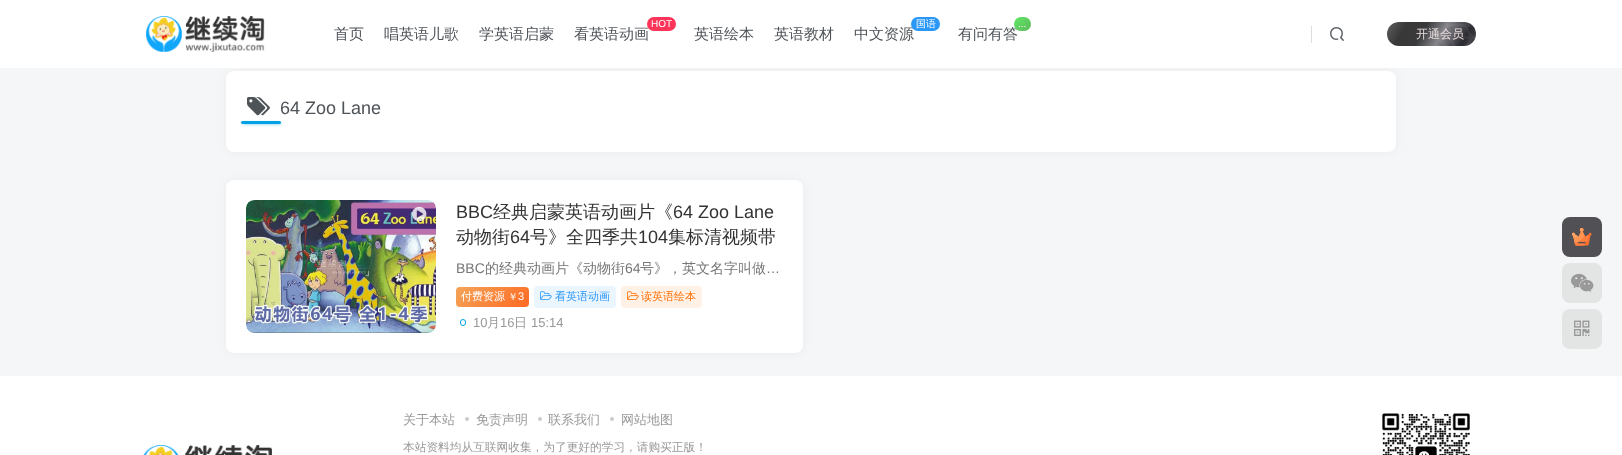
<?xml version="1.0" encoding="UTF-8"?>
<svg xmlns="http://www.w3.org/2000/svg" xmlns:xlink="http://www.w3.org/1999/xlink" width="1622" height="455">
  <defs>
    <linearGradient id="g1" gradientUnits="userSpaceOnUse" x1="1470" y1="56" x2="1393" y2="12"><stop offset="0" stop-color="#4c4d51" /><stop offset="0.15" stop-color="#2a2a31" /><stop offset="0.4" stop-color="#85858a" /><stop offset="0.6" stop-color="#393a3c" /><stop offset="0.8" stop-color="#393838" /><stop offset="1" stop-color="#5e5f62" /></linearGradient>
    <linearGradient id="g2" gradientUnits="userSpaceOnUse" x1="469" y1="274" x2="516" y2="320"><stop offset="0.1" stop-color="#f59f54" /><stop offset="1" stop-color="#ff6922" /></linearGradient>
    <linearGradient id="g3" gradientUnits="userSpaceOnUse" x1="1015" y1="16" x2="1030" y2="32"><stop offset="0.1" stop-color="#60e464" /><stop offset="1" stop-color="#5cb85b" /></linearGradient>
  </defs>
  <rect width="100%" height="100%" fill="#f5f6f7" />
  <rect x="226" y="71" width="1170" height="81" rx="8" fill="#747474" fill-opacity="0.08" filter="blur(5px)" />
  <rect width="1622" height="68" fill="#ffffff" />
  <image x="146" y="16" width="119" height="36" xlink:href="image1.png" />
  <rect x="1311" y="26" width="1" height="17" fill="#dcddde" />
  <image x="1330" y="27" width="14" height="14" xlink:href="image2.png" />
  <rect x="1387" y="22" width="89" height="24" rx="12" fill="url(#g1)" />
  <rect x="1399" y="25" width="1" height="1" fill="#4d4745" />
  <rect x="226" y="71" width="1170" height="81" rx="8" fill="#ffffff" />
  <image x="247" y="97" width="23" height="19" xlink:href="image4.png" />
  <rect x="243" y="123" width="38" height="1" rx="0.5" fill="#00a2e3" filter="blur(1.5px)" />
  <rect x="241" y="121" width="40" height="3" rx="1.5" fill="#00a2e3" />
  <rect x="226" y="180" width="577" height="173" rx="8" fill="#747474" fill-opacity="0.08" filter="blur(5px)" />
  <rect x="226" y="180" width="577" height="173" rx="8" fill="#ffffff" />
  <image x="246" y="200" width="190" height="133" xlink:href="image5.png" />
  <image x="412" y="206" width="15" height="16" xlink:href="image6.png" />
  <rect x="456" y="287" width="73" height="20" rx="4" fill="url(#g2)" />
  <rect x="534" y="286" width="82" height="22" rx="4" fill="#eaf5fe" />
  <image x="540" y="291" width="12" height="9" xlink:href="image7.png" />
  <rect x="621" y="286" width="81" height="22" rx="4" fill="#fff1e6" />
  <image x="627" y="291" width="12" height="9" xlink:href="image8.png" />
  <rect x="460.5" y="319.5" width="5" height="6" rx="2.5" fill="none" stroke="#00a2e3" />
  <rect x="1562" y="217" width="40" height="40" rx="8" fill="#505055" />
  <image x="1572" y="228" width="20" height="18" xlink:href="image9.png" />
  <rect x="1562" y="263" width="40" height="40" rx="8" fill="#e3e4e4" />
  <image x="1571" y="273" width="23" height="19" xlink:href="image10.png" />
  <rect x="1562" y="309" width="40" height="40" rx="8" fill="#e3e4e4" />
  <image x="1574" y="320" width="16" height="16" xlink:href="image11.png" />
  <rect y="376" width="1622" height="79" fill="#ffffff" />
  <image x="143" y="445" width="129" height="10" xlink:href="image12.png" />
  <circle cx="467" cy="419" r="2" fill="#cacbcd" />
  <circle cx="540" cy="419" r="2" fill="#cacbcd" />
  <circle cx="612" cy="419" r="2" fill="#cacbcd" />
  <image x="1382" y="413" width="88" height="42" xlink:href="image13.png" />
  <text x="334" y="39" style="font-family: WenQuanYi Zen Hei; font-size: 15px; font-weight: 500; fill: #4e5358">首页</text>
  <text x="384" y="39" style="font-family: WenQuanYi Zen Hei; font-size: 15px; font-weight: 500; fill: #4e5358">唱英语儿歌</text>
  <text x="479" y="39" style="font-family: WenQuanYi Zen Hei; font-size: 15px; font-weight: 500; fill: #4e5358">学英语启蒙</text>
  <text x="574" y="39" style="font-family: WenQuanYi Zen Hei; font-size: 15px; font-weight: 500; fill: #4e5358">看英语动画</text>
  <rect x="647" y="17" width="29" height="14" rx="7" fill="#fe3459" />
  <text x="651" y="27" style="font-family: Liberation Sans; font-size: 10px; fill: #ffffff">HOT</text>
  <text x="694" y="39" style="font-family: WenQuanYi Zen Hei; font-size: 15px; font-weight: 500; fill: #4e5358">英语绘本</text>
  <text x="774" y="39" style="font-family: WenQuanYi Zen Hei; font-size: 15px; font-weight: 500; fill: #4e5358">英语教材</text>
  <text x="854" y="39" style="font-family: WenQuanYi Zen Hei; font-size: 15px; font-weight: 500; fill: #4e5358">中文资源</text>
  <rect x="911" y="17" width="29" height="14" rx="7" fill="#2997f7" />
  <text x="916" y="27" style="font-family: WenQuanYi Zen Hei; font-size: 10px; font-weight: 500; fill: #ffffff">国语</text>
  <text x="958" y="39" style="font-family: WenQuanYi Zen Hei; font-size: 15px; font-weight: 500; fill: #4e5358">有问有答</text>
  <rect x="1014" y="17" width="17" height="14" rx="7" fill="url(#g3)" />
  <text x="1018" y="27" style="font-family: Liberation Sans; font-size: 10px; fill: #ffffff">...</text>
  <text x="1416" y="38" style="font-family: WenQuanYi Zen Hei; font-size: 12px; font-weight: 500; fill: #ece0e0">开通会员</text>
  <image x="1437" y="24" width="39" height="22" xlink:href="image3.png" />
  <text x="280" y="114" style="font-family: Liberation Sans; font-size: 18px; fill: #4e5358">64 Zoo Lane</text>
  <text x="456" y="218" style="font-family: Liberation Sans; font-size: 18px; fill: #333333">BBC</text>
  <text x="493" y="218" style="font-family: WenQuanYi Zen Hei; font-size: 18px; font-weight: 500; fill: #333333">经典启蒙英语动画片《</text>
  <text x="673" y="218" style="font-family: Liberation Sans; font-size: 18px; fill: #333333">64 Zoo Lane</text>
  <text x="456" y="243" style="font-family: WenQuanYi Zen Hei; font-size: 18px; font-weight: 500; fill: #333333">动物街</text>
  <text x="510" y="243" style="font-family: Liberation Sans; font-size: 18px; fill: #333333">64</text>
  <text x="530" y="243" style="font-family: WenQuanYi Zen Hei; font-size: 18px; font-weight: 500; fill: #333333">号》全四季共</text>
  <text x="638" y="243" style="font-family: Liberation Sans; font-size: 18px; fill: #333333">104</text>
  <text x="668" y="243" style="font-family: WenQuanYi Zen Hei; font-size: 18px; font-weight: 500; fill: #333333">集标清视频带</text>
  <text x="456" y="273" style="font-family: Liberation Sans; font-size: 14px; fill: #777777">BBC</text>
  <text x="485" y="273" style="font-family: WenQuanYi Zen Hei; font-size: 14px; font-weight: 500; fill: #777777">的经典动画片《动物街</text>
  <text x="625" y="273" style="font-family: Liberation Sans; font-size: 14px; fill: #777777">64</text>
  <text x="640" y="273" style="font-family: WenQuanYi Zen Hei; font-size: 14px; font-weight: 500; fill: #777777">号》，英文名字叫做</text>
  <text x="766" y="273" style="font-family: Liberation Sans; font-size: 14px; fill: #777777">…</text>
  <text x="461" y="300" style="font-family: WenQuanYi Zen Hei; font-size: 11px; font-weight: 500; fill: #ffffff">付费资源</text>
  <text x="508" y="300" style="font-family: WenQuanYi Zen Hei; font-size: 10px; font-weight: 500; fill: #ffffff">￥</text>
  <text x="518" y="300" style="font-family: Liberation Sans; font-size: 11px; fill: #ffffff">3</text>
  <text x="555" y="300" style="font-family: WenQuanYi Zen Hei; font-size: 11px; font-weight: 500; fill: #2997f7">看英语动画</text>
  <text x="641" y="300" style="font-family: WenQuanYi Zen Hei; font-size: 11px; font-weight: 500; fill: #ff6f06">读英语绘本</text>
  <text x="473" y="327" style="font-family: Liberation Sans; font-size: 13px; fill: #999999">10</text>
  <text x="487" y="327" style="font-family: WenQuanYi Zen Hei; font-size: 13px; font-weight: 500; fill: #999999">月</text>
  <text x="500" y="327" style="font-family: Liberation Sans; font-size: 13px; fill: #999999">16</text>
  <text x="514" y="327" style="font-family: WenQuanYi Zen Hei; font-size: 13px; font-weight: 500; fill: #999999">日</text>
  <text x="531" y="327" style="font-family: Liberation Sans; font-size: 13px; fill: #999999">15:14</text>
  <text x="403" y="424" style="font-family: WenQuanYi Zen Hei; font-size: 13px; font-weight: 500; fill: #999999">关于本站</text>
  <text x="476" y="424" style="font-family: WenQuanYi Zen Hei; font-size: 13px; font-weight: 500; fill: #999999">免责声明</text>
  <text x="548" y="424" style="font-family: WenQuanYi Zen Hei; font-size: 13px; font-weight: 500; fill: #999999">联系我们</text>
  <text x="621" y="424" style="font-family: WenQuanYi Zen Hei; font-size: 13px; font-weight: 500; fill: #999999">网站地图</text>
  <text x="403" y="451" style="font-family: WenQuanYi Zen Hei; font-size: 11.7px; font-weight: 500; fill: #999999">本站资料均从互联网收集，为了更好的学习，请购买正版！</text>
</svg>
